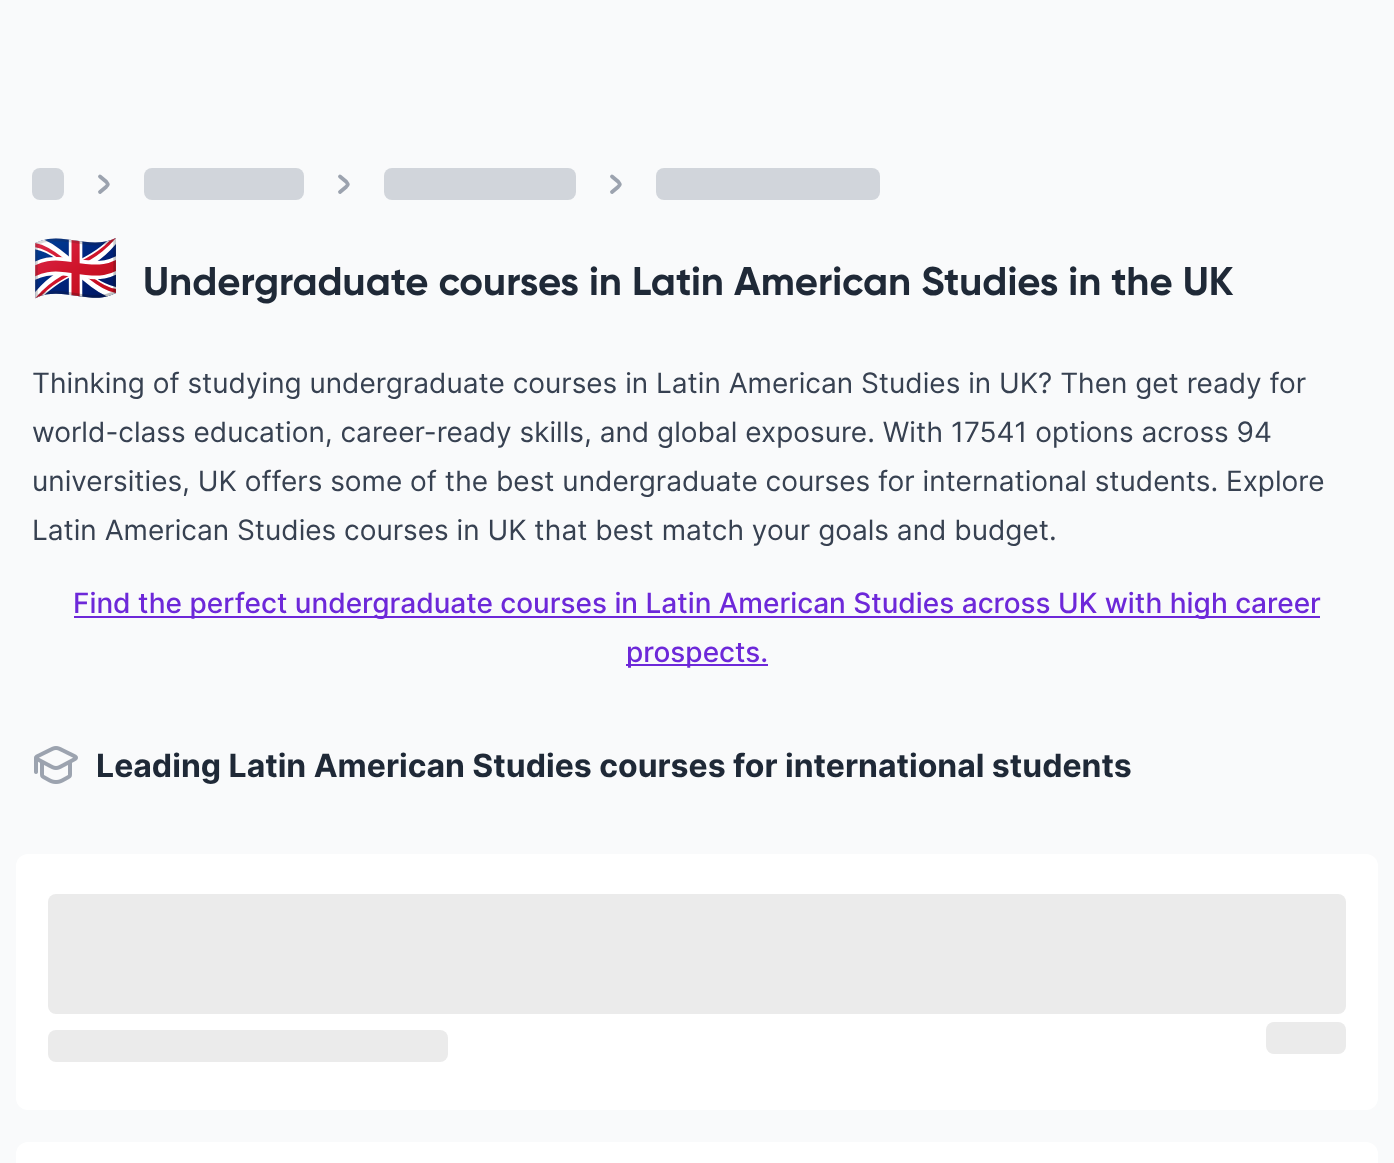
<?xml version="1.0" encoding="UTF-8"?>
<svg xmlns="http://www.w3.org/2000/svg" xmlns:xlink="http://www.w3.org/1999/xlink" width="1394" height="1163">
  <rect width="100%" height="100%" fill="#f9fafb" />
  <rect x="32" y="168" width="32" height="32" rx="8" fill="#d1d5db" />
  <path d="M 100 176.5 l 6 5 c 2.5 3 2.5 2.5 0 5.5 l -6 5" fill="none" stroke="#9ca3af" stroke-width="3.8" stroke-linecap="round" stroke-linejoin="round" />
  <rect x="144" y="168" width="160" height="32" rx="8" fill="#d1d5db" />
  <path d="M 340 176.5 l 6 5 c 2.5 3 2.5 2.5 0 5.5 l -6 5" fill="none" stroke="#9ca3af" stroke-width="3.8" stroke-linecap="round" stroke-linejoin="round" />
  <rect x="384" y="168" width="192" height="32" rx="8" fill="#d1d5db" />
  <path d="M 612 176.5 l 6 5 c 2.5 3 2.5 2.5 0 5.5 l -6 5" fill="none" stroke="#9ca3af" stroke-width="3.8" stroke-linecap="round" stroke-linejoin="round" />
  <rect x="656" y="168" width="224" height="32" rx="8" fill="#d1d5db" />
  <rect x="74" y="616" width="1246" height="2" fill="#6d28d9" />
  <rect x="626" y="664" width="142" height="2" fill="#6d28d9" />
  <image x="34" y="746" width="44" height="38" xlink:href="image1.png" />
  <rect x="16" y="854" width="1362" height="256" rx="12" fill="#ffffff" />
  <rect x="48" y="894" width="1298" height="120" rx="8" fill="#ebebeb" />
  <rect x="48" y="1030" width="400" height="32" rx="8" fill="#ebebeb" />
  <rect x="1266" y="1022" width="80" height="32" rx="8" fill="#ebebeb" />
  <rect x="16" y="1142" width="1362" height="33" rx="12" fill="#ffffff" />
  <text x="32" y="292" style="font-family: Noto Color Emoji; font-size: 70px; font-weight: bold; fill: #1f2937">🇬🇧</text>
  <text x="143" y="295" style="font-family: Gilroy; font-size: 40px; font-weight: bold; fill: #1f2937">Undergraduate courses in Latin American Studies in the UK</text>
  <text x="32" y="393" style="font-family: Inter; font-size: 28px; fill: #374151">Thinking of studying undergraduate courses in Latin American Studies in UK? Then get ready for</text>
  <text x="32" y="442" style="font-family: Inter; font-size: 28px; fill: #374151">world-class education, career-ready skills, and global exposure. With 17541 options across 94</text>
  <text x="32" y="491" style="font-family: Inter; font-size: 28px; fill: #374151">universities, UK offers some of the best undergraduate courses for international students. Explore</text>
  <text x="32" y="540" style="font-family: Inter; font-size: 28px; fill: #374151">Latin American Studies courses in UK that best match your goals and budget.</text>
  <text x="73" y="613" style="font-family: Inter; font-size: 28px; font-weight: 500; fill: #6d28d9">Find the perfect undergraduate courses in Latin American Studies across UK with high career</text>
  <text x="626" y="662" style="font-family: Inter; font-size: 28px; font-weight: 500; fill: #6d28d9">prospects.</text>
  <text x="96" y="777" style="font-family: Inter; font-size: 32px; font-weight: bold; fill: #1f2937">Leading Latin American Studies courses for international students</text>
</svg>
